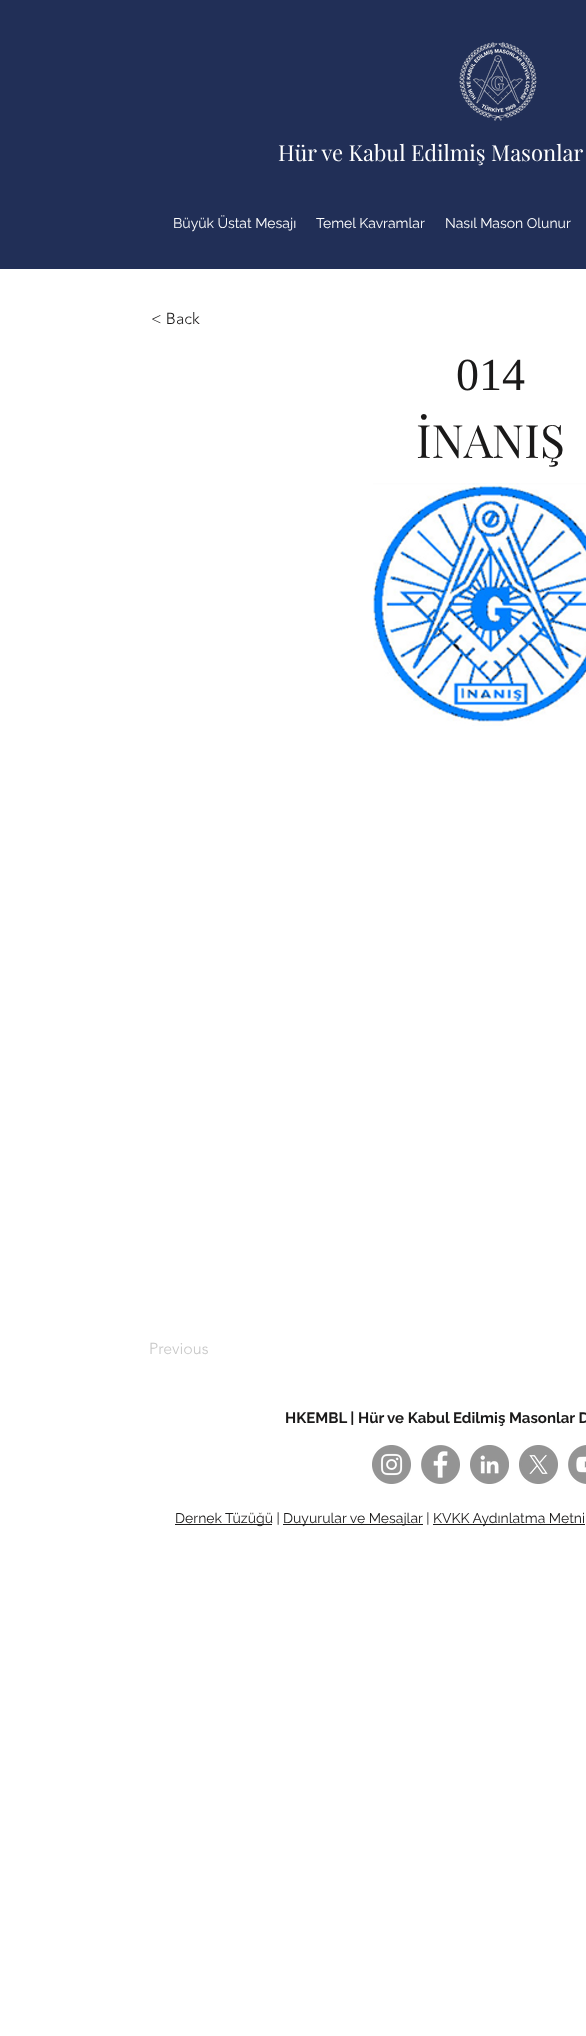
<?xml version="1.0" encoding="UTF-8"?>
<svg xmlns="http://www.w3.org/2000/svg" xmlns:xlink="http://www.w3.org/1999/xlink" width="586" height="2036">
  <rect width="100%" height="100%" fill="#ffffff" />
  <rect width="586" height="269" fill="#212f57" />
  <image x="459" y="42" width="78" height="79" xlink:href="image1.png" />
  <image x="373" y="483" width="213" height="243" xlink:href="image2.png" />
  <image x="372" y="1445" width="39" height="39" xlink:href="image3.png" />
  <image x="421" y="1445" width="39" height="39" xlink:href="image4.png" />
  <image x="470" y="1445" width="39" height="39" xlink:href="image5.png" />
  <image x="519" y="1445" width="39" height="39" xlink:href="image6.png" />
  <image x="568" y="1445" width="18" height="39" xlink:href="image7.png" />
  <rect x="175" y="1524" width="97" height="1" fill="#1a1919" />
  <rect x="283" y="1524" width="140" height="1" fill="#1a1919" />
  <rect x="433" y="1524" width="152" height="1" fill="#1a1919" />
  <text x="278" y="161" style="font-family: Playfair Display; font-size: 22px; fill: #ffffff">Hür ve Kabul Edilmiş Masonlar</text>
  <text x="173" y="228" style="font-family: Raleway; font-size: 14px; fill: #ffffff">Büyük Üstat Mesajı</text>
  <text x="316" y="228" style="font-family: Raleway; font-size: 14px; fill: #ffffff">Temel Kavramlar</text>
  <text x="445" y="228" style="font-family: Raleway; font-size: 14px; fill: #ffffff">Nasıl Mason Olunur</text>
  <text x="151" y="324" style="font-family: 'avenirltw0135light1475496'; font-size: 16px; font-weight: 300; fill: #1a1919">&lt; Back</text>
  <text x="456" y="390" style="font-family: Liberation Serif; font-size: 46px; fill: #1a1919">014</text>
  <text x="416" y="458" style="font-family: Playfair Display; font-size: 46px; fill: #1a1919">İNANIŞ</text>
  <text x="149" y="1354" style="font-family: 'avenirltw0135light1475496'; font-size: 16px; font-weight: 300; fill: #c7c7c7">Previous</text>
  <text x="285" y="1423" style="font-family: Raleway; font-size: 15px; font-weight: bold; fill: #1a1919">HKEMBL | Hür ve Kabul Edilmiş Masonlar D</text>
  <text x="175" y="1523" style="font-family: Raleway; font-size: 14px; fill: #1a1919">Dernek Tüzüğü |</text>
  <text x="283" y="1523" style="font-family: Raleway; font-size: 14px; fill: #1a1919">Duyurular ve Mesajlar |</text>
  <text x="433" y="1523" style="font-family: Raleway; font-size: 14px; fill: #1a1919">KVKK Aydınlatma Metni</text>
</svg>
